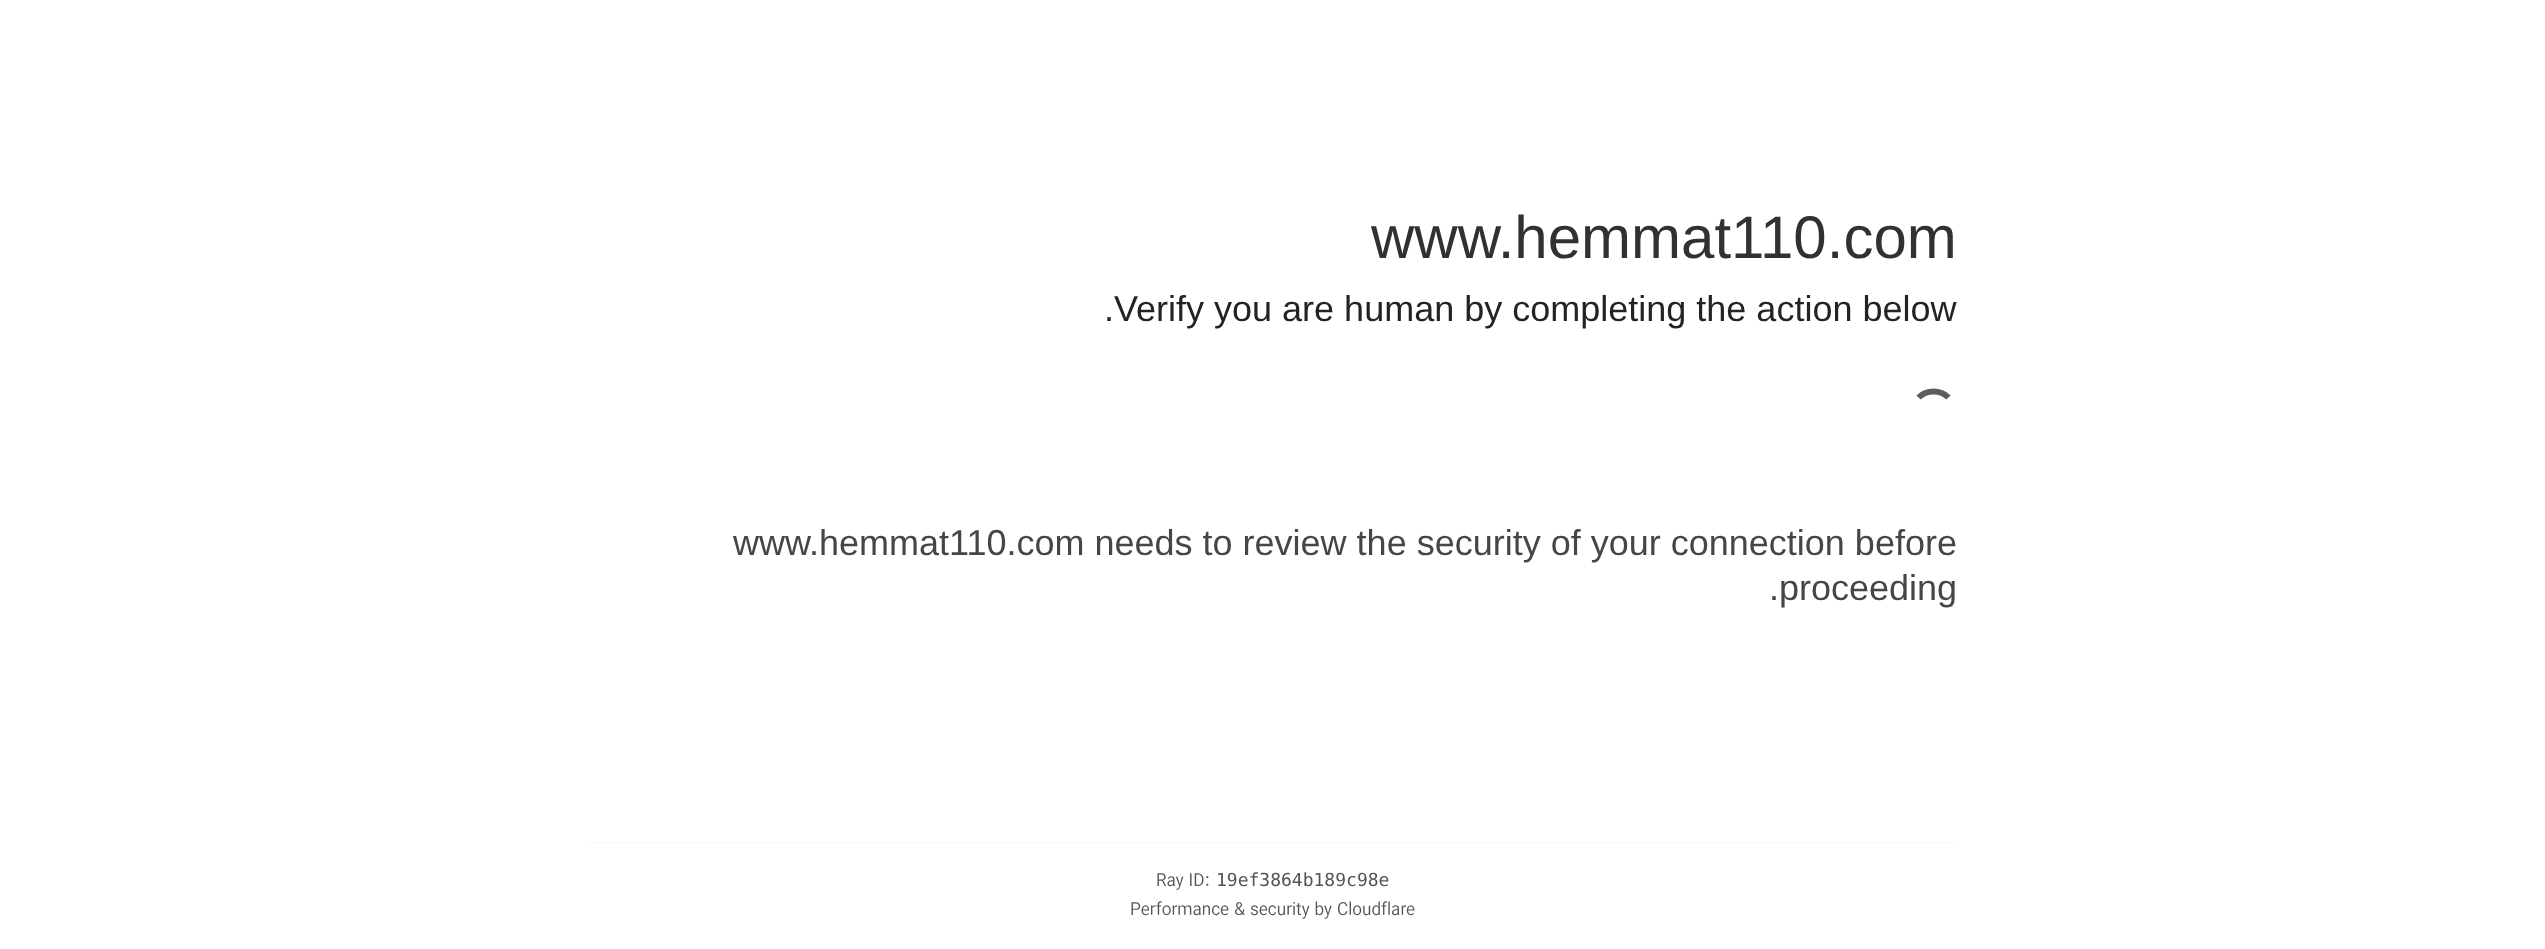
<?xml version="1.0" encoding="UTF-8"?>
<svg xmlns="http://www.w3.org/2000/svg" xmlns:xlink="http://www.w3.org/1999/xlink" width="2545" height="949">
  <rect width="100%" height="100%" fill="#ffffff" />
  <path d="M 1918.5 397.5 c 8 -8 22 -8 30 0" fill="none" stroke="#5e5e5e" stroke-width="6" />
  <rect x="590" y="842" width="1368" height="2" fill="#fbfbfb" />
  <text x="1371" y="258" style="font-family: Liberation Sans; font-size: 60px; fill: #313131">www.hemmat110.com</text>
  <text x="1104" y="321" style="font-family: Liberation Sans; font-size: 36px; fill: #232323">.Verify you are human by completing the action below</text>
  <text x="733" y="555" style="font-family: Liberation Sans; font-size: 36px; fill: #464646">www.hemmat110.com needs to review the security of your connection before</text>
  <text x="1769" y="600" style="font-family: Liberation Sans; font-size: 36px; fill: #464646">.proceeding</text>
  <text x="1156" y="886" style="font-family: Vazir; font-size: 18px; font-weight: 300; fill: #545454">Ray ID:</text>
  <text x="1216" y="886" style="font-family: DejaVu Sans Mono; font-size: 18px; fill: #545454">19ef3864b189c98e</text>
  <text x="1130" y="915" style="font-family: Vazir; font-size: 18px; font-weight: 300; fill: #545454">Performance &amp; security by Cloudflare</text>
</svg>
